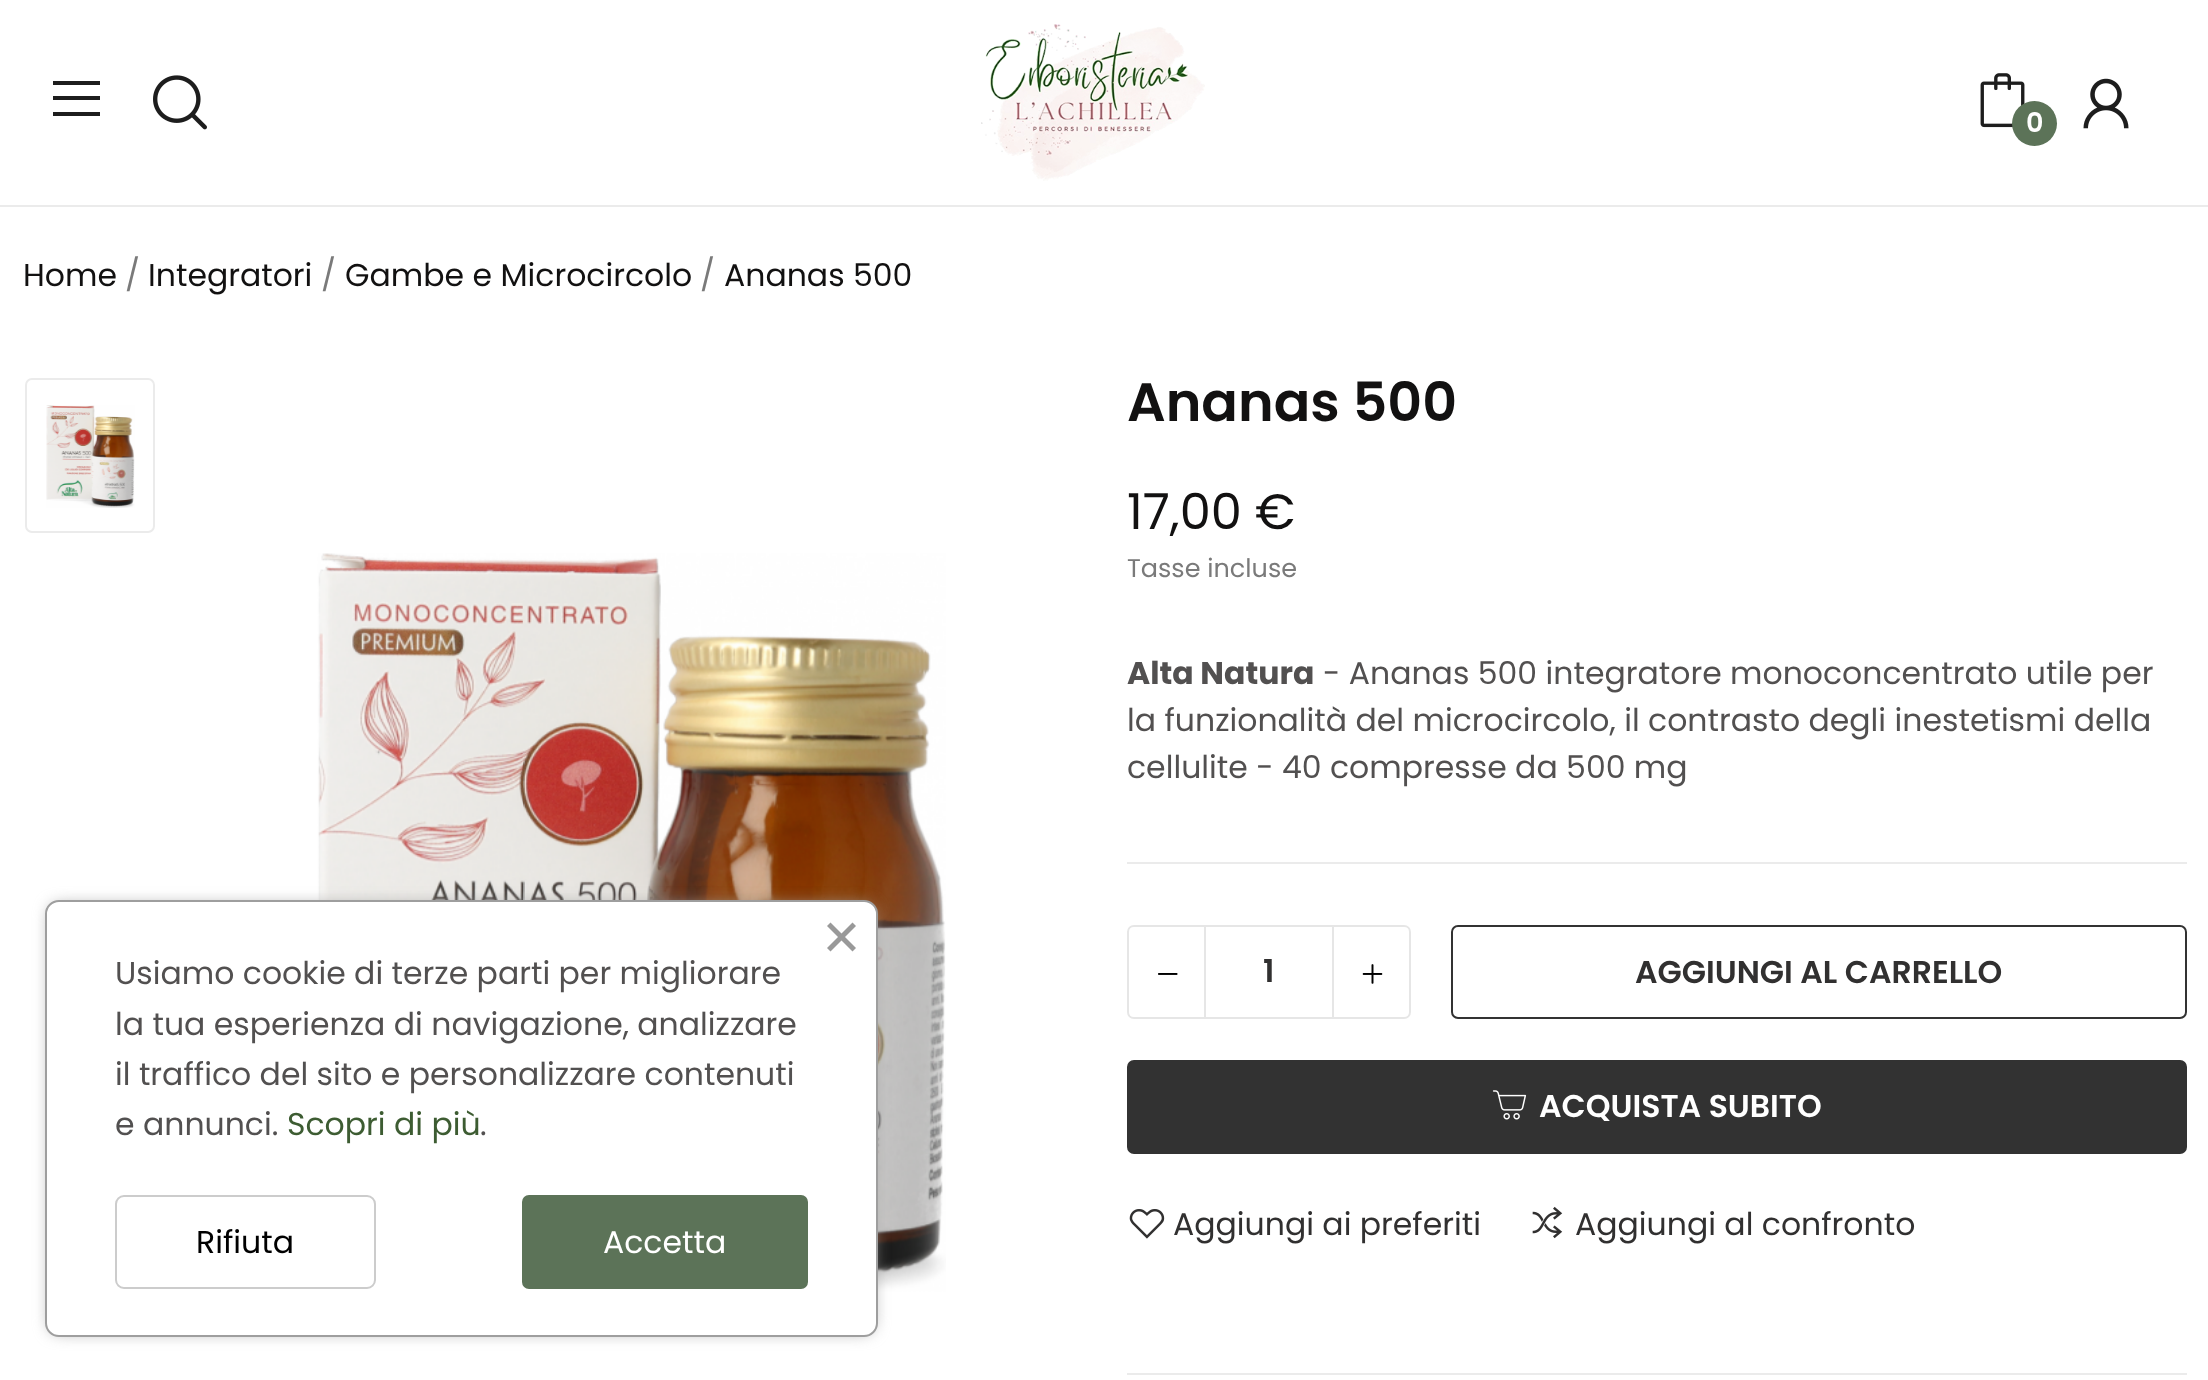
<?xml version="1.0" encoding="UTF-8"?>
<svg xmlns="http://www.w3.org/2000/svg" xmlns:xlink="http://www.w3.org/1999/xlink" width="2208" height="1380">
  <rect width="100%" height="100%" fill="#ffffff" />
  <rect y="205" width="2208" height="2" fill="#ebebeb" />
  <path d="M 53 81 v 4 h 47 v -4 z m 0 15 v 4 h 47 v -4 z m 0 16 v 4 h 47 v -4 z" fill="#1d1d1d" />
  <image x="153" y="75" width="54" height="55" xlink:href="image1.png" />
  <image x="981" y="24" width="224" height="157" xlink:href="image2.png" />
  <image x="1980" y="73" width="45" height="55" xlink:href="image3.png" />
  <circle cx="2034.5" cy="123.5" r="22.5" fill="#5c7358" />
  <image x="2083" y="78" width="46" height="51" xlink:href="image4.png" />
  <rect x="26" y="379" width="128" height="153" rx="6" fill="none" stroke="#ebebeb" stroke-width="2" />
  <image x="46" y="405" width="89" height="103" xlink:href="image5.png" />
  <image x="317" y="553" width="629" height="739" xlink:href="image6.png" />
  <rect x="1127" y="862" width="1060" height="2" fill="#ebebeb" />
  <path d="M 1134 926 h 71 v 92 h -71 c -3.5 0 -6 -2.5 -6 -6 v -80 c 0 -3.5 2.5 -6 6 -6 z" fill="none" stroke="#e6e6e6" stroke-width="2" />
  <image x="1158" y="973" width="20" height="2" xlink:href="image7.png" />
  <path d="M 1333 926 h 71 c 3.5 0 6 2.5 6 6 v 80 c 0 3.5 -2.5 6 -6 6 h -71 z" fill="none" stroke="#e6e6e6" stroke-width="2" />
  <image x="1362" y="964" width="21" height="20" xlink:href="image8.png" />
  <rect x="1206" y="925" width="126" height="2" fill="#e6e6e6" />
  <rect x="1206" y="1017" width="126" height="2" fill="#e6e6e6" />
  <rect x="1452" y="926" width="734" height="92" rx="6" fill="none" stroke="#323232" stroke-width="2" />
  <rect x="1128" y="1061" width="1058" height="92" rx="6" fill="#323232" stroke="#323232" stroke-width="2" />
  <image x="1492" y="1090" width="35" height="30" xlink:href="image9.png" />
  <image x="1129" y="1209" width="36" height="30" xlink:href="image10.png" />
  <image x="1532" y="1206" width="31" height="33" xlink:href="image11.png" />
  <rect x="1127" y="1373" width="1060" height="2" fill="#ebebeb" />
  <rect x="50" y="905" width="823" height="427" rx="9" fill="#9e9e9e" filter="blur(8px)" />
  <rect x="46" y="901" width="831" height="435" rx="13" fill="#ffffff" stroke="#9e9e9e" stroke-width="2" />
  <path d="M 827 948 l 25.5 -25.5 l 3.5 3.5 l -25.5 25.5 z" fill="#999999" />
  <path d="M 830.5 922.5 l 25.5 25.5 l -3.5 3.5 l -25.5 -25.5 z" fill="#999999" />
  <rect x="116" y="1196" width="259" height="92" rx="8" fill="none" stroke="#cccccc" stroke-width="2" />
  <rect x="523" y="1196" width="284" height="92" rx="6" fill="#5c7358" stroke="#5c7358" stroke-width="2" />
  <text x="2026" y="132" style="font-family: Poppins; font-size: 27px; font-weight: 600; fill: #ffffff">0</text>
  <text x="23" y="286" style="font-family: Poppins; font-size: 31.5px; fill: #121111">Home</text>
  <text x="125" y="286" style="font-family: Poppins; font-size: 31.5px; fill: #7a7a7a">/</text>
  <text x="148" y="286" style="font-family: Poppins; font-size: 31.5px; fill: #121111">Integratori</text>
  <text x="321" y="286" style="font-family: Poppins; font-size: 31.5px; fill: #7a7a7a">/</text>
  <text x="345" y="286" style="font-family: Poppins; font-size: 31.5px; fill: #121111">Gambe e Microcircolo</text>
  <text x="700" y="286" style="font-family: Poppins; font-size: 31.5px; fill: #7a7a7a">/</text>
  <text x="724" y="286" style="font-family: Poppins; font-size: 31.5px; fill: #121111">Ananas 500</text>
  <text x="1127" y="421" style="font-family: Poppins; font-size: 54px; font-weight: 600; fill: #121111">Ananas 500</text>
  <text x="1127" y="529" style="font-family: Poppins; font-size: 49.5px; fill: #121111">17,00 €</text>
  <text x="1127" y="577" style="font-family: Poppins; font-size: 25.5px; fill: #7a7a7a">Tasse incluse</text>
  <text x="1127" y="684" style="font-family: Poppins; font-size: 31.5px; font-weight: bold; fill: #525050">Alta Natura</text>
  <text x="1323" y="684" style="font-family: Poppins; font-size: 31.5px; fill: #525050">- Ananas 500 integratore monoconcentrato utile per</text>
  <text x="1127" y="731" style="font-family: Poppins; font-size: 31.5px; fill: #525050">la funzionalità del microcircolo, il contrasto degli inestetismi della</text>
  <text x="1127" y="778" style="font-family: Poppins; font-size: 31.5px; fill: #525050">cellulite - 40 compresse da 500 mg</text>
  <text x="1263" y="982" style="font-family: Poppins; font-size: 31.5px; font-weight: 600; fill: #313030">1</text>
  <text x="1635" y="983" style="font-family: Poppins; font-size: 31.5px; font-weight: 600; fill: #313030">AGGIUNGI AL CARRELLO</text>
  <text x="1539" y="1117" style="font-family: Poppins; font-size: 31.5px; font-weight: 600; fill: #ffffff">ACQUISTA SUBITO</text>
  <text x="1173" y="1235" style="font-family: Poppins; font-size: 31.5px; fill: #313030">Aggiungi ai preferiti</text>
  <text x="1575" y="1235" style="font-family: Poppins; font-size: 31.5px; fill: #313030">Aggiungi al confronto</text>
  <text x="115" y="984" style="font-family: Poppins; font-size: 31.5px; fill: #525050">Usiamo cookie di terze parti per migliorare</text>
  <text x="115" y="1035" style="font-family: Poppins; font-size: 31.5px; fill: #525050">la tua esperienza di navigazione, analizzare</text>
  <text x="115" y="1085" style="font-family: Poppins; font-size: 31.5px; fill: #525050">il traffico del sito e personalizzare contenuti</text>
  <text x="115" y="1135" style="font-family: Poppins; font-size: 31.5px; fill: #525050">e annunci.</text>
  <text x="287" y="1135" style="font-family: Poppins; font-size: 31.5px; fill: #3d5c32">Scopri di più</text>
  <text x="480" y="1135" style="font-family: Poppins; font-size: 31.5px; fill: #525050">.</text>
  <text x="196" y="1253" style="font-family: Poppins; font-size: 31.5px; fill: #000000">Rifiuta</text>
  <text x="603" y="1253" style="font-family: Poppins; font-size: 31.5px; fill: #ffffff">Accetta</text>
</svg>
